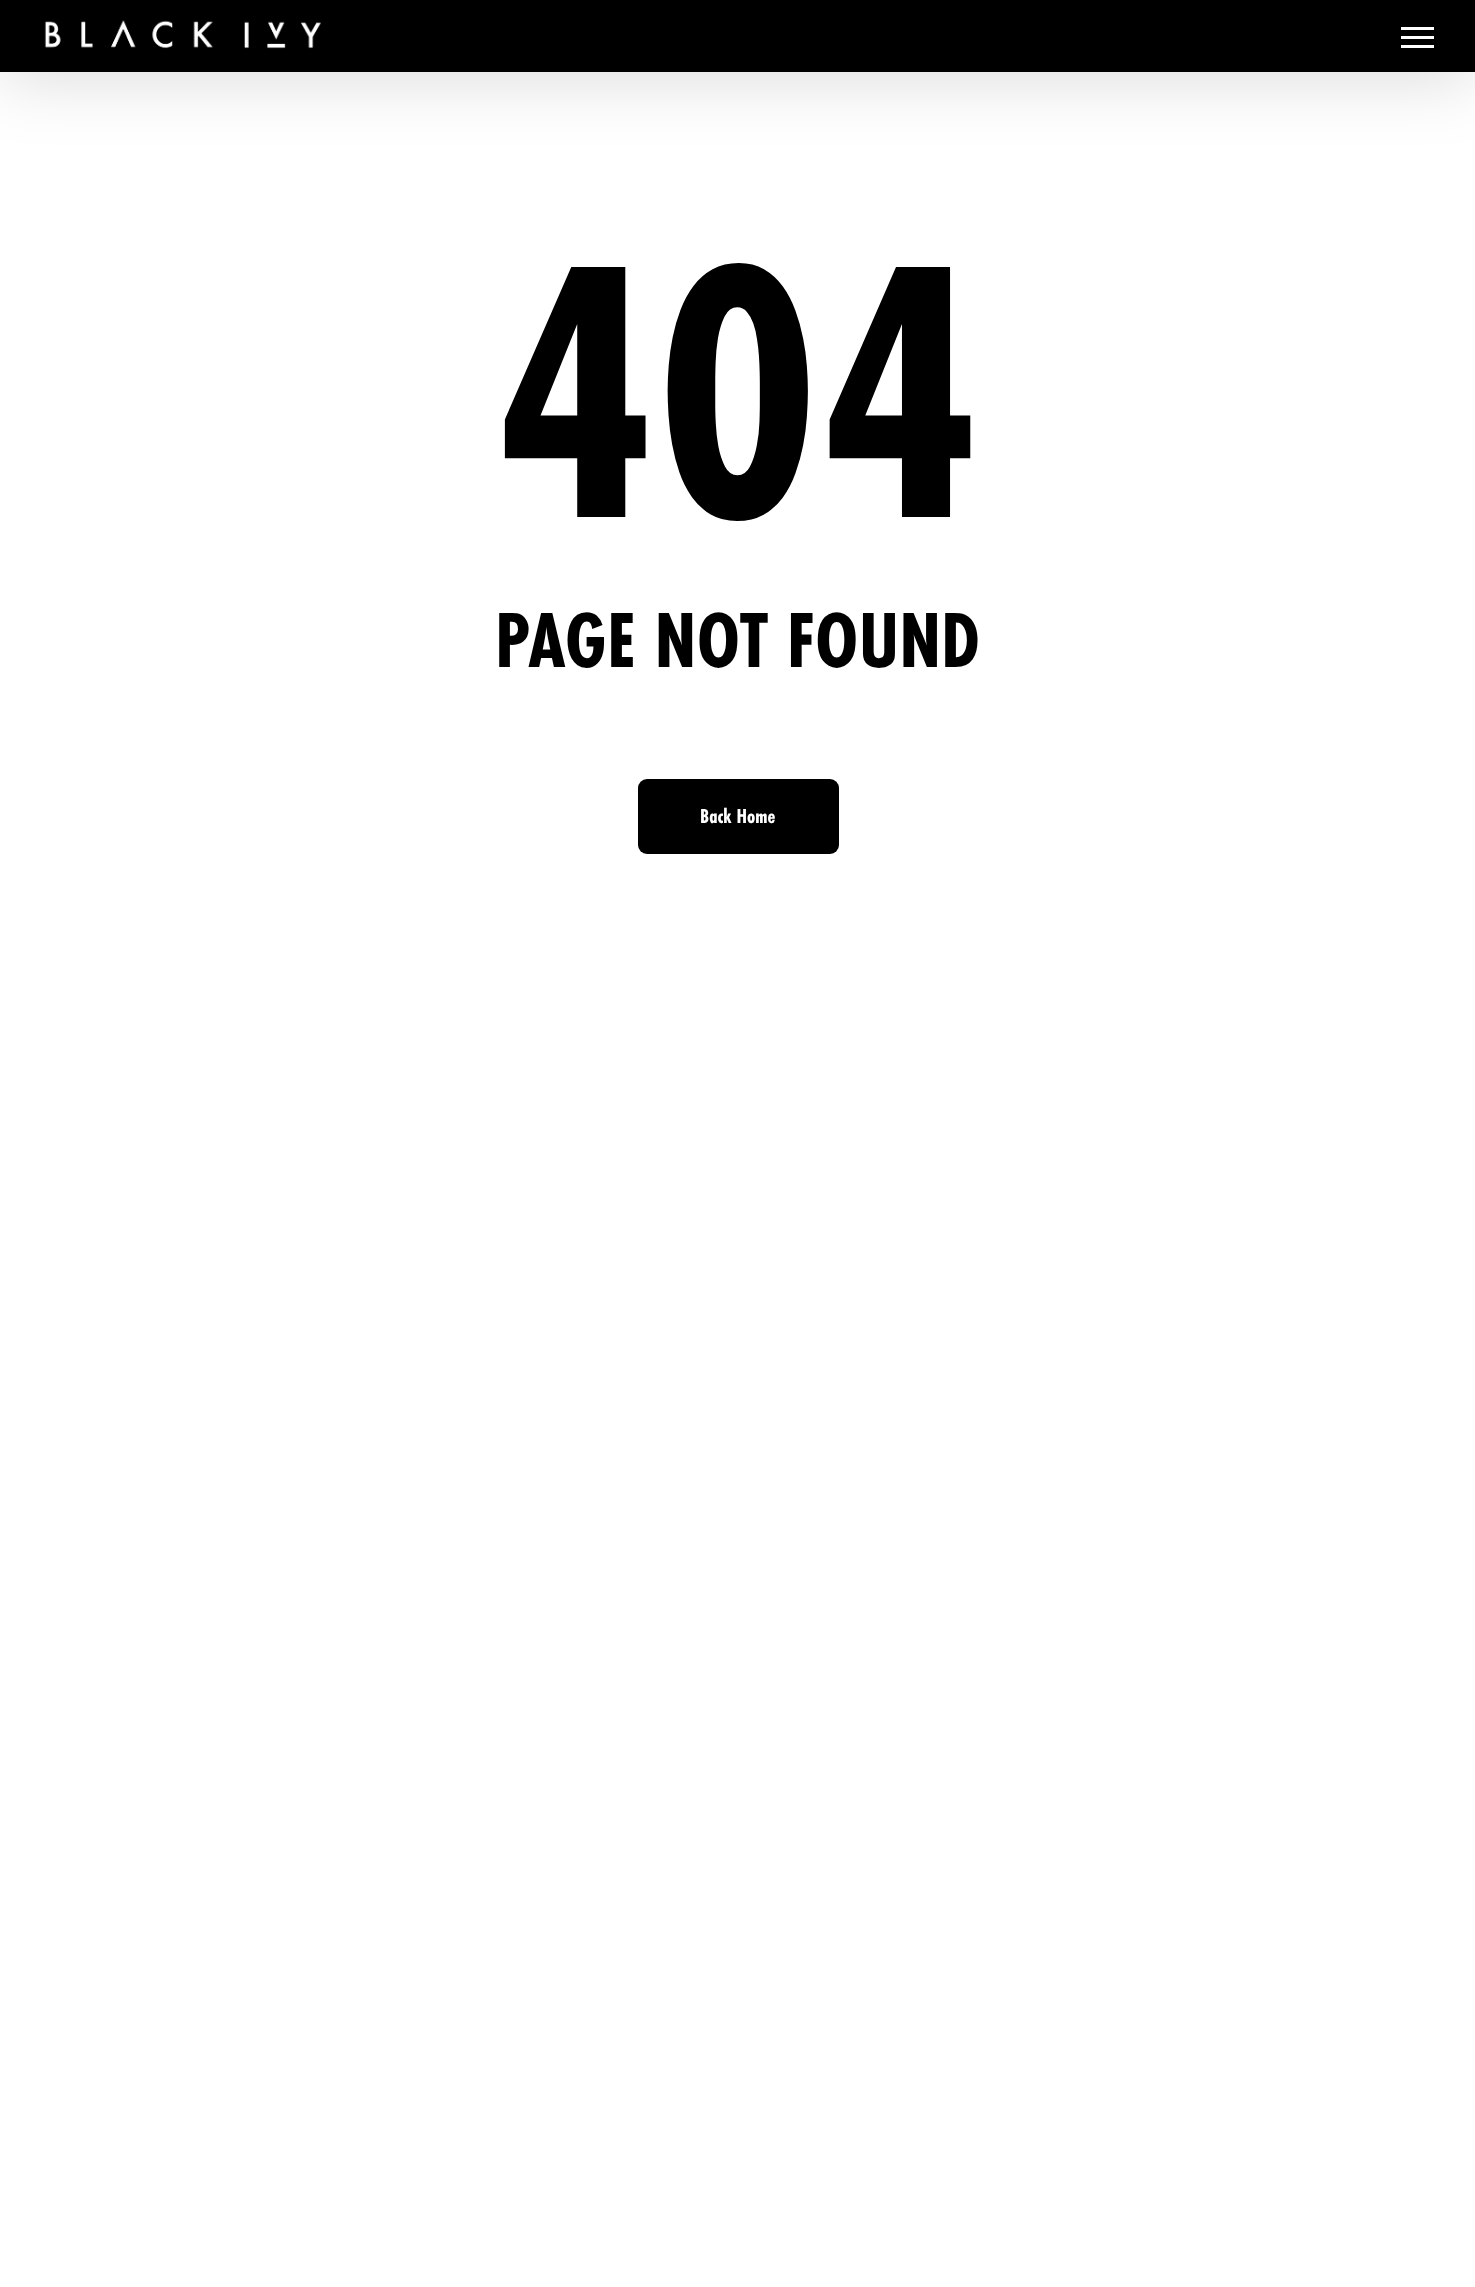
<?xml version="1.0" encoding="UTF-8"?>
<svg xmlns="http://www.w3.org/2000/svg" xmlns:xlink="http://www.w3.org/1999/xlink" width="1475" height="2287">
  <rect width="100%" height="100%" fill="#ffffff" />
  <rect y="5" width="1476" height="72" fill="#000000" fill-opacity="0.15" filter="blur(34px)" />
  <rect width="1475" height="72" fill="#000000" />
  <image x="44" y="20" width="277" height="29" xlink:href="image1.png" />
  <rect x="1401" y="27" width="33" height="3" fill="#ffffff" />
  <rect x="1401" y="45" width="33" height="3" fill="#ffffff" />
  <rect x="1401" y="36" width="33" height="3" fill="#ffffff" />
  <rect x="638" y="779" width="201" height="75" rx="9" fill="#000000" />
  <text x="494" y="517" style="font-family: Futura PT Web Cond; font-size: 375px; font-weight: bold; fill: #000000">404</text>
  <text x="495" y="667" style="font-family: Futura PT Web Cond; font-size: 81px; font-weight: bold; fill: #000000">PAGE NOT FOUND</text>
  <text x="700" y="823" style="font-family: Futura PT Web Cond; font-size: 21px; font-weight: bold; fill: #ffffff">Back Home</text>
</svg>
